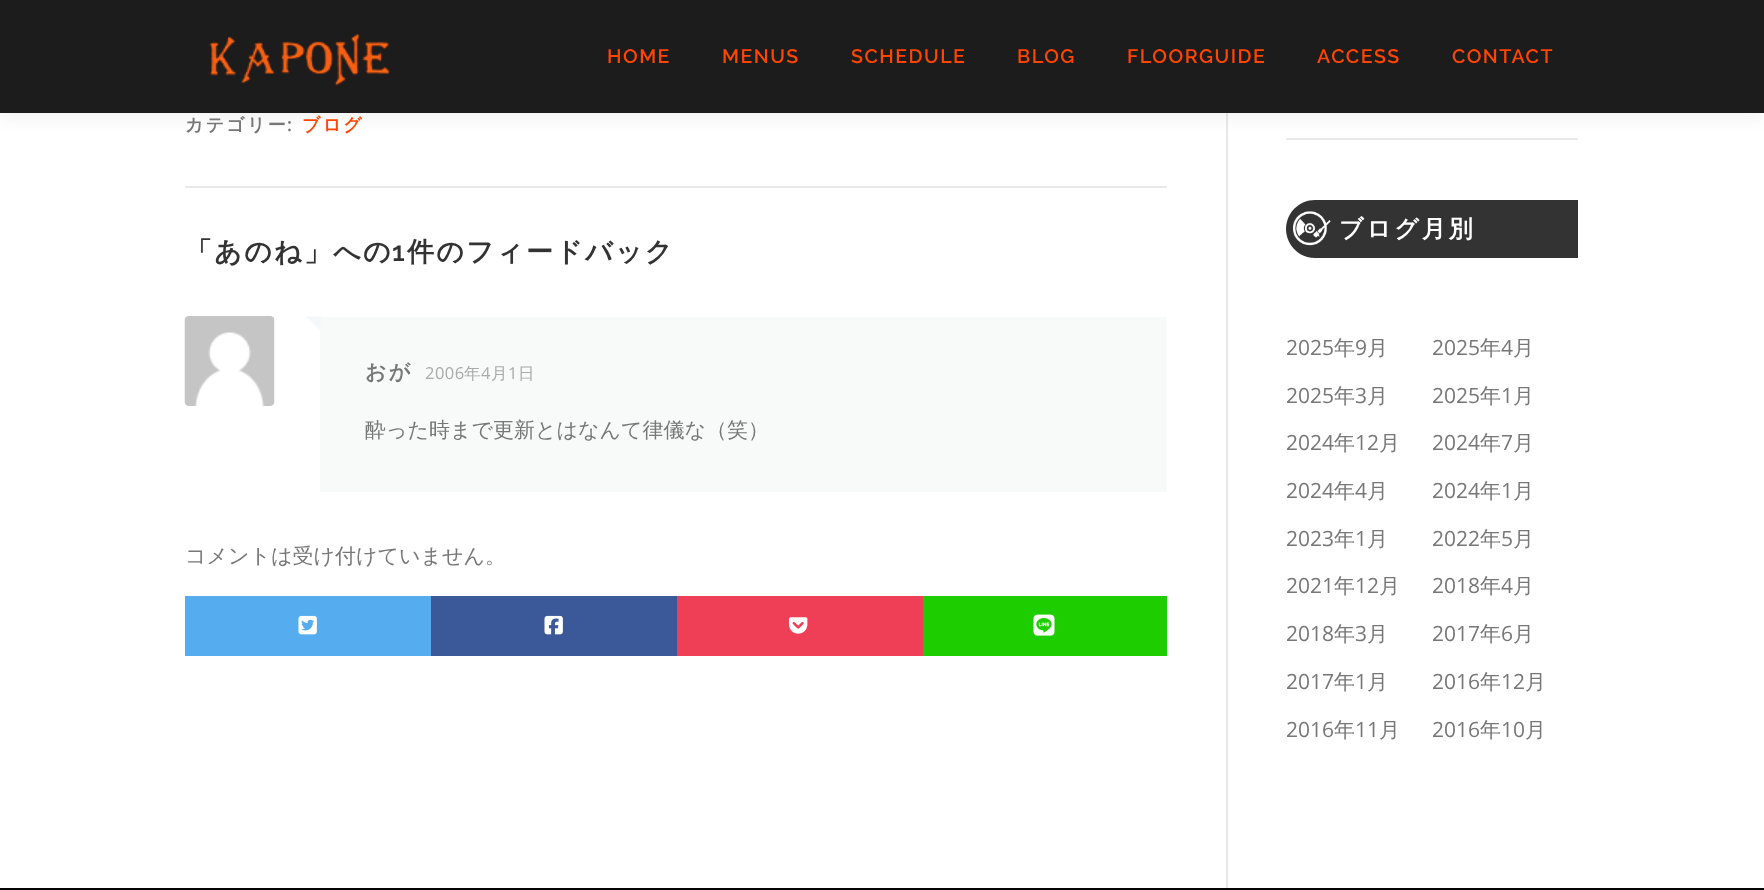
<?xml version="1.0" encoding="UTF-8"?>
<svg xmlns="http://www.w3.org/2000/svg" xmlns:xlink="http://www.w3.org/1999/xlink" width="1764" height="890">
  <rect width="100%" height="100%" fill="#ffffff" />
  <rect x="1226" y="113" width="2" height="775" fill="#e9e9e9" />
  <rect x="1286" y="138" width="292" height="2" fill="#e9e9e9" />
  <rect y="8" width="1764" height="112" fill="#323232" fill-opacity="0.06" filter="blur(7.5px)" />
  <rect width="1764" height="113" fill="#1c1c1c" />
  <image x="209" y="34" width="182" height="52" xlink:href="image1.png" />
  <rect x="185" y="186" width="982" height="2" fill="#e9e9e9" />
  <image x="184" y="316" width="91" height="90" xlink:href="image2.png" />
  <rect x="320" y="317" width="847" height="175" fill="#f8f9f9" />
  <path d="M 321 316.5 v 15 l -15 -15 z" fill="#f6f7f9" />
  <rect x="185" y="596" width="246" height="60" fill="#55acee" />
  <image x="298" y="615" width="19" height="20" xlink:href="image3.png" />
  <rect x="431" y="596" width="246" height="60" fill="#3b5998" />
  <image x="544" y="615" width="19" height="20" xlink:href="image4.png" />
  <rect x="677" y="596" width="246" height="60" fill="#ef3f56" />
  <image x="789" y="617" width="19" height="17" xlink:href="image5.png" />
  <rect x="923" y="596" width="244" height="60" fill="#1dcd00" />
  <image x="1033" y="614" width="22" height="22" xlink:href="image6.png" />
  <path d="M 1315 200 h 263 v 58 h -263 c -16 0 -29 -13 -29 -29 c 0 -16 13 -29 29 -29 z" fill="#333333" />
  <image x="1293" y="211" width="38" height="35" xlink:href="image7.png" />
  <rect y="888" width="1764" height="2" fill="#050505" />
  <text x="607" y="63" style="font-family: Raleway; font-size: 19.5px; font-weight: 600; letter-spacing: 1.5px; fill: #ff4500">HOME</text>
  <text x="722" y="63" style="font-family: Raleway; font-size: 19.5px; font-weight: 600; letter-spacing: 1.5px; fill: #ff4500">MENUS</text>
  <text x="851" y="63" style="font-family: Raleway; font-size: 19.5px; font-weight: 600; letter-spacing: 1.5px; fill: #ff4500">SCHEDULE</text>
  <text x="1017" y="63" style="font-family: Raleway; font-size: 19.5px; font-weight: 600; letter-spacing: 1.5px; fill: #ff4500">BLOG</text>
  <text x="1127" y="63" style="font-family: Raleway; font-size: 19.5px; font-weight: 600; letter-spacing: 1.5px; fill: #ff4500">FLOORGUIDE</text>
  <text x="1317" y="63" style="font-family: Raleway; font-size: 19.5px; font-weight: 600; letter-spacing: 1.5px; fill: #ff4500">ACCESS</text>
  <text x="1452" y="63" style="font-family: Raleway; font-size: 19.5px; font-weight: 600; letter-spacing: 1.5px; fill: #ff4500">CONTACT</text>
  <text x="185" y="131" style="font-family: WenQuanYi Zen Hei; font-size: 18px; font-weight: bold; letter-spacing: 2.25px; fill: #777777">カテゴリー</text>
  <text x="287" y="131" style="font-family: Open Sans; font-size: 18px; font-weight: 600; letter-spacing: 2.25px; fill: #777777">:</text>
  <text x="302" y="131" style="font-family: WenQuanYi Zen Hei; font-size: 18px; font-weight: bold; letter-spacing: 2.25px; fill: #ff4500">ブログ</text>
  <text x="185" y="261" style="font-family: WenQuanYi Zen Hei; font-size: 27px; font-weight: bold; letter-spacing: 2.25px; fill: #333333">「あのね」への</text>
  <text x="392" y="261" style="font-family: Raleway; font-size: 27px; font-weight: 600; letter-spacing: 2.25px; fill: #333333">1</text>
  <text x="407" y="261" style="font-family: WenQuanYi Zen Hei; font-size: 27px; font-weight: bold; letter-spacing: 2.25px; fill: #333333">件のフィードバック</text>
  <text x="365" y="379" style="font-family: WenQuanYi Zen Hei; font-size: 21px; font-weight: bold; letter-spacing: 2.25px; fill: #777777">おが</text>
  <text x="425" y="379" style="font-family: Open Sans; font-size: 16.5px; letter-spacing: 0.5px; fill: #aaaaaa">2006</text>
  <text x="464" y="379" style="font-family: WenQuanYi Zen Hei; font-size: 16.5px; font-weight: 500; letter-spacing: 0.5px; fill: #aaaaaa">年</text>
  <text x="481" y="379" style="font-family: Open Sans; font-size: 16.5px; letter-spacing: 0.5px; fill: #aaaaaa">4</text>
  <text x="491" y="379" style="font-family: WenQuanYi Zen Hei; font-size: 16.5px; font-weight: 500; letter-spacing: 0.5px; fill: #aaaaaa">月</text>
  <text x="508" y="379" style="font-family: Open Sans; font-size: 16.5px; letter-spacing: 0.5px; fill: #aaaaaa">1</text>
  <text x="518" y="379" style="font-family: WenQuanYi Zen Hei; font-size: 16.5px; font-weight: 500; letter-spacing: 0.5px; fill: #aaaaaa">日</text>
  <text x="365" y="437" style="font-family: WenQuanYi Zen Hei; font-size: 21px; font-weight: 500; fill: #777777">酔った時まで更新とはなんて律儀な（笑）</text>
  <text x="185" y="563" style="font-family: WenQuanYi Zen Hei; font-size: 21px; font-weight: 500; fill: #777777">コメントは受け付けていません。</text>
  <text x="1339" y="237" style="font-family: WenQuanYi Zen Hei; font-size: 24px; font-weight: bold; letter-spacing: 3px; fill: #ffffff">ブログ月別</text>
  <text x="1286" y="355" style="font-family: Open Sans; font-size: 21px; fill: #777777">2025</text>
  <text x="1334" y="355" style="font-family: WenQuanYi Zen Hei; font-size: 21px; font-weight: 500; fill: #777777">年</text>
  <text x="1355" y="355" style="font-family: Open Sans; font-size: 21px; fill: #777777">9</text>
  <text x="1367" y="355" style="font-family: WenQuanYi Zen Hei; font-size: 21px; font-weight: 500; fill: #777777">月</text>
  <text x="1432" y="355" style="font-family: Open Sans; font-size: 21px; fill: #777777">2025</text>
  <text x="1480" y="355" style="font-family: WenQuanYi Zen Hei; font-size: 21px; font-weight: 500; fill: #777777">年</text>
  <text x="1501" y="355" style="font-family: Open Sans; font-size: 21px; fill: #777777">4</text>
  <text x="1513" y="355" style="font-family: WenQuanYi Zen Hei; font-size: 21px; font-weight: 500; fill: #777777">月</text>
  <text x="1286" y="403" style="font-family: Open Sans; font-size: 21px; fill: #777777">2025</text>
  <text x="1334" y="403" style="font-family: WenQuanYi Zen Hei; font-size: 21px; font-weight: 500; fill: #777777">年</text>
  <text x="1355" y="403" style="font-family: Open Sans; font-size: 21px; fill: #777777">3</text>
  <text x="1367" y="403" style="font-family: WenQuanYi Zen Hei; font-size: 21px; font-weight: 500; fill: #777777">月</text>
  <text x="1432" y="403" style="font-family: Open Sans; font-size: 21px; fill: #777777">2025</text>
  <text x="1480" y="403" style="font-family: WenQuanYi Zen Hei; font-size: 21px; font-weight: 500; fill: #777777">年</text>
  <text x="1501" y="403" style="font-family: Open Sans; font-size: 21px; fill: #777777">1</text>
  <text x="1513" y="403" style="font-family: WenQuanYi Zen Hei; font-size: 21px; font-weight: 500; fill: #777777">月</text>
  <text x="1286" y="450" style="font-family: Open Sans; font-size: 21px; fill: #777777">2024</text>
  <text x="1334" y="450" style="font-family: WenQuanYi Zen Hei; font-size: 21px; font-weight: 500; fill: #777777">年</text>
  <text x="1355" y="450" style="font-family: Open Sans; font-size: 21px; fill: #777777">12</text>
  <text x="1379" y="450" style="font-family: WenQuanYi Zen Hei; font-size: 21px; font-weight: 500; fill: #777777">月</text>
  <text x="1432" y="450" style="font-family: Open Sans; font-size: 21px; fill: #777777">2024</text>
  <text x="1480" y="450" style="font-family: WenQuanYi Zen Hei; font-size: 21px; font-weight: 500; fill: #777777">年</text>
  <text x="1501" y="450" style="font-family: Open Sans; font-size: 21px; fill: #777777">7</text>
  <text x="1513" y="450" style="font-family: WenQuanYi Zen Hei; font-size: 21px; font-weight: 500; fill: #777777">月</text>
  <text x="1286" y="498" style="font-family: Open Sans; font-size: 21px; fill: #777777">2024</text>
  <text x="1334" y="498" style="font-family: WenQuanYi Zen Hei; font-size: 21px; font-weight: 500; fill: #777777">年</text>
  <text x="1355" y="498" style="font-family: Open Sans; font-size: 21px; fill: #777777">4</text>
  <text x="1367" y="498" style="font-family: WenQuanYi Zen Hei; font-size: 21px; font-weight: 500; fill: #777777">月</text>
  <text x="1432" y="498" style="font-family: Open Sans; font-size: 21px; fill: #777777">2024</text>
  <text x="1480" y="498" style="font-family: WenQuanYi Zen Hei; font-size: 21px; font-weight: 500; fill: #777777">年</text>
  <text x="1501" y="498" style="font-family: Open Sans; font-size: 21px; fill: #777777">1</text>
  <text x="1513" y="498" style="font-family: WenQuanYi Zen Hei; font-size: 21px; font-weight: 500; fill: #777777">月</text>
  <text x="1286" y="546" style="font-family: Open Sans; font-size: 21px; fill: #777777">2023</text>
  <text x="1334" y="546" style="font-family: WenQuanYi Zen Hei; font-size: 21px; font-weight: 500; fill: #777777">年</text>
  <text x="1355" y="546" style="font-family: Open Sans; font-size: 21px; fill: #777777">1</text>
  <text x="1367" y="546" style="font-family: WenQuanYi Zen Hei; font-size: 21px; font-weight: 500; fill: #777777">月</text>
  <text x="1432" y="546" style="font-family: Open Sans; font-size: 21px; fill: #777777">2022</text>
  <text x="1480" y="546" style="font-family: WenQuanYi Zen Hei; font-size: 21px; font-weight: 500; fill: #777777">年</text>
  <text x="1501" y="546" style="font-family: Open Sans; font-size: 21px; fill: #777777">5</text>
  <text x="1513" y="546" style="font-family: WenQuanYi Zen Hei; font-size: 21px; font-weight: 500; fill: #777777">月</text>
  <text x="1286" y="593" style="font-family: Open Sans; font-size: 21px; fill: #777777">2021</text>
  <text x="1334" y="593" style="font-family: WenQuanYi Zen Hei; font-size: 21px; font-weight: 500; fill: #777777">年</text>
  <text x="1355" y="593" style="font-family: Open Sans; font-size: 21px; fill: #777777">12</text>
  <text x="1379" y="593" style="font-family: WenQuanYi Zen Hei; font-size: 21px; font-weight: 500; fill: #777777">月</text>
  <text x="1432" y="593" style="font-family: Open Sans; font-size: 21px; fill: #777777">2018</text>
  <text x="1480" y="593" style="font-family: WenQuanYi Zen Hei; font-size: 21px; font-weight: 500; fill: #777777">年</text>
  <text x="1501" y="593" style="font-family: Open Sans; font-size: 21px; fill: #777777">4</text>
  <text x="1513" y="593" style="font-family: WenQuanYi Zen Hei; font-size: 21px; font-weight: 500; fill: #777777">月</text>
  <text x="1286" y="641" style="font-family: Open Sans; font-size: 21px; fill: #777777">2018</text>
  <text x="1334" y="641" style="font-family: WenQuanYi Zen Hei; font-size: 21px; font-weight: 500; fill: #777777">年</text>
  <text x="1355" y="641" style="font-family: Open Sans; font-size: 21px; fill: #777777">3</text>
  <text x="1367" y="641" style="font-family: WenQuanYi Zen Hei; font-size: 21px; font-weight: 500; fill: #777777">月</text>
  <text x="1432" y="641" style="font-family: Open Sans; font-size: 21px; fill: #777777">2017</text>
  <text x="1480" y="641" style="font-family: WenQuanYi Zen Hei; font-size: 21px; font-weight: 500; fill: #777777">年</text>
  <text x="1501" y="641" style="font-family: Open Sans; font-size: 21px; fill: #777777">6</text>
  <text x="1513" y="641" style="font-family: WenQuanYi Zen Hei; font-size: 21px; font-weight: 500; fill: #777777">月</text>
  <text x="1286" y="689" style="font-family: Open Sans; font-size: 21px; fill: #777777">2017</text>
  <text x="1334" y="689" style="font-family: WenQuanYi Zen Hei; font-size: 21px; font-weight: 500; fill: #777777">年</text>
  <text x="1355" y="689" style="font-family: Open Sans; font-size: 21px; fill: #777777">1</text>
  <text x="1367" y="689" style="font-family: WenQuanYi Zen Hei; font-size: 21px; font-weight: 500; fill: #777777">月</text>
  <text x="1432" y="689" style="font-family: Open Sans; font-size: 21px; fill: #777777">2016</text>
  <text x="1480" y="689" style="font-family: WenQuanYi Zen Hei; font-size: 21px; font-weight: 500; fill: #777777">年</text>
  <text x="1501" y="689" style="font-family: Open Sans; font-size: 21px; fill: #777777">12</text>
  <text x="1525" y="689" style="font-family: WenQuanYi Zen Hei; font-size: 21px; font-weight: 500; fill: #777777">月</text>
  <text x="1286" y="737" style="font-family: Open Sans; font-size: 21px; fill: #777777">2016</text>
  <text x="1334" y="737" style="font-family: WenQuanYi Zen Hei; font-size: 21px; font-weight: 500; fill: #777777">年</text>
  <text x="1355" y="737" style="font-family: Open Sans; font-size: 21px; fill: #777777">11</text>
  <text x="1379" y="737" style="font-family: WenQuanYi Zen Hei; font-size: 21px; font-weight: 500; fill: #777777">月</text>
  <text x="1432" y="737" style="font-family: Open Sans; font-size: 21px; fill: #777777">2016</text>
  <text x="1480" y="737" style="font-family: WenQuanYi Zen Hei; font-size: 21px; font-weight: 500; fill: #777777">年</text>
  <text x="1501" y="737" style="font-family: Open Sans; font-size: 21px; fill: #777777">10</text>
  <text x="1525" y="737" style="font-family: WenQuanYi Zen Hei; font-size: 21px; font-weight: 500; fill: #777777">月</text>
</svg>
